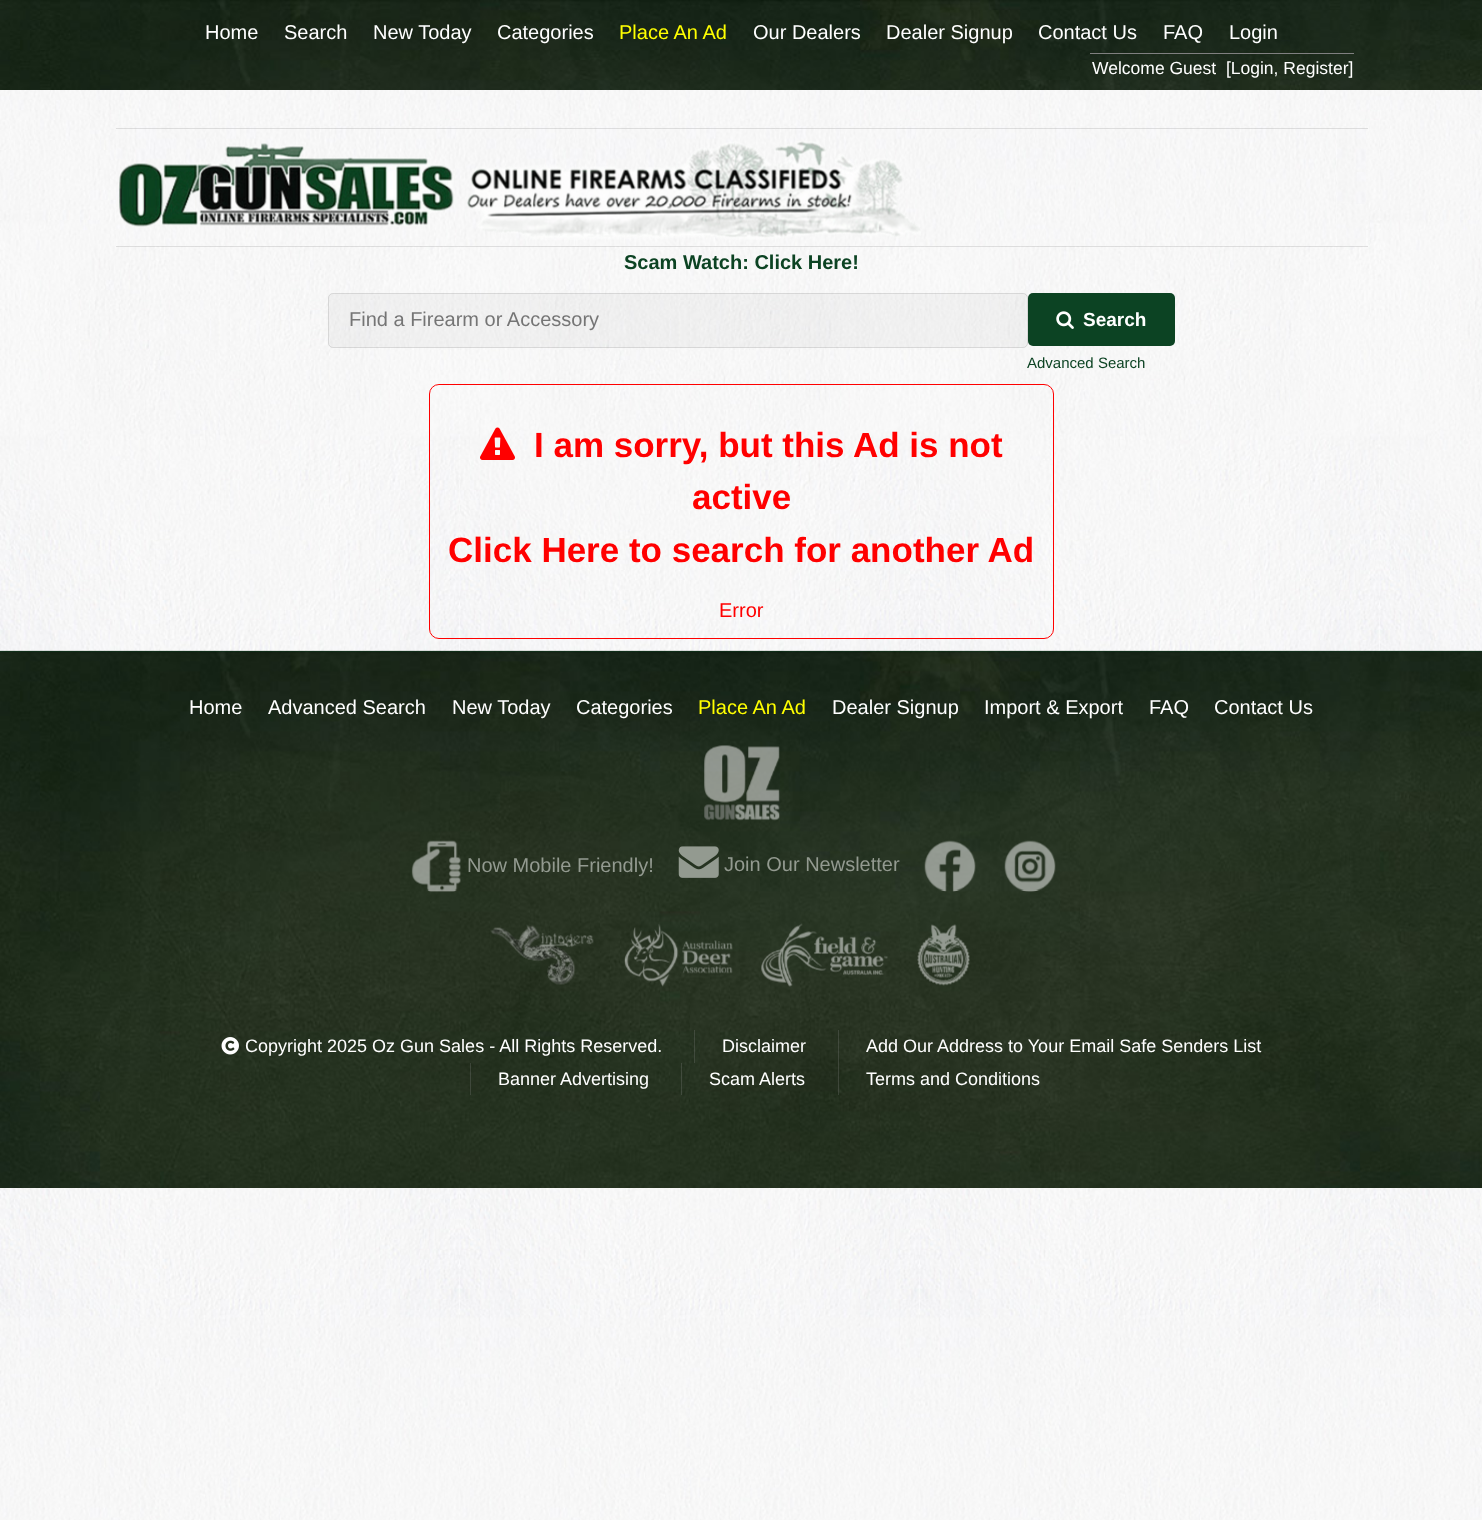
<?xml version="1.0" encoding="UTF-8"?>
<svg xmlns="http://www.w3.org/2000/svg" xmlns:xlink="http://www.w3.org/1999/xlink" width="1482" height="1520">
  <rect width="100%" height="100%" fill="#ffffff" />
  <image x="0" y="90" width="1482" height="1430" xlink:href="image1.png" />
  <image x="0" y="0" width="1482" height="90" xlink:href="image2.png" />
  <rect x="1090" y="53" width="264" height="1" fill="#808080" />
  <image x="116" y="126" width="1250" height="3" xlink:href="image3.png" />
  <rect x="116" y="128" width="1252" height="1" fill="#909090" fill-opacity="0.25" />
  <rect x="116" y="246" width="1252" height="1" fill="#909090" fill-opacity="0.25" />
  <rect x="116" y="129" width="1250" height="117" fill="#ffffff" />
  <image x="116" y="129" width="1220" height="117" xlink:href="image4.png" />
  <image x="119" y="141" width="802" height="99" xlink:href="image5.png" />
  <image x="1336" y="129" width="30" height="117" xlink:href="image6.png" />
  <image x="1337" y="172" width="29" height="32" xlink:href="image7.png" />
  <rect x="328" y="293" width="700" height="55" rx="5" fill="#909090" fill-opacity="0.07" />
  <rect x="328.5" y="293.5" width="699" height="54" rx="4.5" fill="none" stroke="#909090" stroke-opacity="0.25" />
  <rect x="1028" y="293" width="147" height="53" rx="5" fill="#0c4323" />
  <image x="1056" y="311" width="18" height="18" xlink:href="image8.png" />
  <rect x="429.5" y="384.5" width="624" height="254" rx="9.5" fill="none" stroke="#ff0000" />
  <image x="480" y="427" width="35" height="33" xlink:href="image9.png" />
  <rect y="651" width="1482" height="1" fill="#0c4323" />
  <image x="0" y="650" width="1482" height="538" xlink:href="image10.png" />
  <image x="704" y="745" width="76" height="76" xlink:href="image11.png" />
  <image x="411" y="840" width="50" height="52" xlink:href="image12.png" />
  <image x="678" y="846" width="41" height="32" xlink:href="image13.png" />
  <image x="924" y="840" width="52" height="52" xlink:href="image14.png" />
  <image x="1004" y="840" width="52" height="52" xlink:href="image15.png" />
  <image x="490" y="924" width="104" height="61" xlink:href="image16.png" />
  <image x="624" y="924" width="109" height="63" xlink:href="image17.png" />
  <image x="761" y="923" width="127" height="64" xlink:href="image18.png" />
  <image x="917" y="924" width="53" height="62" xlink:href="image19.png" />
  <image x="221" y="1037" width="18" height="18" xlink:href="image20.png" />
  <rect x="694" y="1030" width="1" height="33" fill="#909090" fill-opacity="0.25" />
  <rect x="838" y="1030" width="1" height="33" fill="#909090" fill-opacity="0.25" />
  <rect x="470" y="1063" width="1" height="32" fill="#909090" fill-opacity="0.25" />
  <rect x="681" y="1063" width="1" height="32" fill="#909090" fill-opacity="0.25" />
  <rect x="838" y="1063" width="1" height="32" fill="#909090" fill-opacity="0.25" />
  <text x="205" y="39" style="font-family: Liberation Sans; font-size: 20px; fill: #ffffff">Home</text>
  <text x="284" y="39" style="font-family: Liberation Sans; font-size: 20px; fill: #ffffff">Search</text>
  <text x="373" y="39" style="font-family: Liberation Sans; font-size: 20px; fill: #ffffff">New Today</text>
  <text x="497" y="39" style="font-family: Liberation Sans; font-size: 20px; fill: #ffffff">Categories</text>
  <text x="619" y="39" style="font-family: Liberation Sans; font-size: 20px; fill: #ffff00">Place An Ad</text>
  <text x="753" y="39" style="font-family: Liberation Sans; font-size: 20px; fill: #ffffff">Our Dealers</text>
  <text x="886" y="39" style="font-family: Liberation Sans; font-size: 20px; fill: #ffffff">Dealer Signup</text>
  <text x="1038" y="39" style="font-family: Liberation Sans; font-size: 20px; fill: #ffffff">Contact Us</text>
  <text x="1163" y="39" style="font-family: Liberation Sans; font-size: 20px; fill: #ffffff">FAQ</text>
  <text x="1229" y="39" style="font-family: Liberation Sans; font-size: 20px; fill: #ffffff">Login</text>
  <text x="1092" y="74" style="font-family: Liberation Sans; font-size: 17.5px; fill: #ffffff" xml:space="preserve">Welcome Guest  [Login, Register]</text>
  <text x="624" y="269" style="font-family: Liberation Sans; font-size: 20px; font-weight: bold; fill: #0c4323">Scam Watch: Click Here!</text>
  <text x="349" y="326" style="font-family: Liberation Sans; font-size: 20px; fill: #757575">Find a Firearm or Accessory</text>
  <text x="1083" y="326" style="font-family: Liberation Sans; font-size: 19px; font-weight: bold; fill: #ffffff">Search</text>
  <text x="1027" y="368" style="font-family: Liberation Sans; font-size: 15px; fill: #0c4323">Advanced Search</text>
  <text x="534" y="457" style="font-family: Liberation Sans; font-size: 35px; font-weight: bold; fill: #ff0000">I am sorry, but this Ad is not</text>
  <text x="692" y="509" style="font-family: Liberation Sans; font-size: 35px; font-weight: bold; fill: #ff0000">active</text>
  <text x="448" y="562" style="font-family: Liberation Sans; font-size: 35px; font-weight: bold; fill: #ff0000">Click Here to search for another Ad</text>
  <text x="719" y="617" style="font-family: Liberation Sans; font-size: 20px; fill: #ff0000">Error</text>
  <text x="189" y="714" style="font-family: Liberation Sans; font-size: 20px; fill: #ffffff">Home</text>
  <text x="268" y="714" style="font-family: Liberation Sans; font-size: 20px; fill: #ffffff">Advanced Search</text>
  <text x="452" y="714" style="font-family: Liberation Sans; font-size: 20px; fill: #ffffff">New Today</text>
  <text x="576" y="714" style="font-family: Liberation Sans; font-size: 20px; fill: #ffffff">Categories</text>
  <text x="698" y="714" style="font-family: Liberation Sans; font-size: 20px; fill: #ffff00">Place An Ad</text>
  <text x="832" y="714" style="font-family: Liberation Sans; font-size: 20px; fill: #ffffff">Dealer Signup</text>
  <text x="984" y="714" style="font-family: Liberation Sans; font-size: 20px; fill: #ffffff">Import &amp; Export</text>
  <text x="1149" y="714" style="font-family: Liberation Sans; font-size: 20px; fill: #ffffff">FAQ</text>
  <text x="1214" y="714" style="font-family: Liberation Sans; font-size: 20px; fill: #ffffff">Contact Us</text>
  <text x="467" y="872" style="font-family: Liberation Sans; font-size: 20px; fill: #939a90">Now Mobile Friendly!</text>
  <text x="724" y="871" style="font-family: Liberation Sans; font-size: 20px; fill: #939a90">Join Our Newsletter</text>
  <text x="245" y="1052" style="font-family: Liberation Sans; font-size: 18px; fill: #ffffff">Copyright 2025 Oz Gun Sales - All Rights Reserved.</text>
  <text x="722" y="1052" style="font-family: Liberation Sans; font-size: 18px; fill: #ffffff">Disclaimer</text>
  <text x="866" y="1052" style="font-family: Liberation Sans; font-size: 18px; fill: #ffffff">Add Our Address to Your Email Safe Senders List</text>
  <text x="498" y="1085" style="font-family: Liberation Sans; font-size: 18px; fill: #ffffff">Banner Advertising</text>
  <text x="709" y="1085" style="font-family: Liberation Sans; font-size: 18px; fill: #ffffff">Scam Alerts</text>
  <text x="866" y="1085" style="font-family: Liberation Sans; font-size: 18px; fill: #ffffff">Terms and Conditions</text>
</svg>
